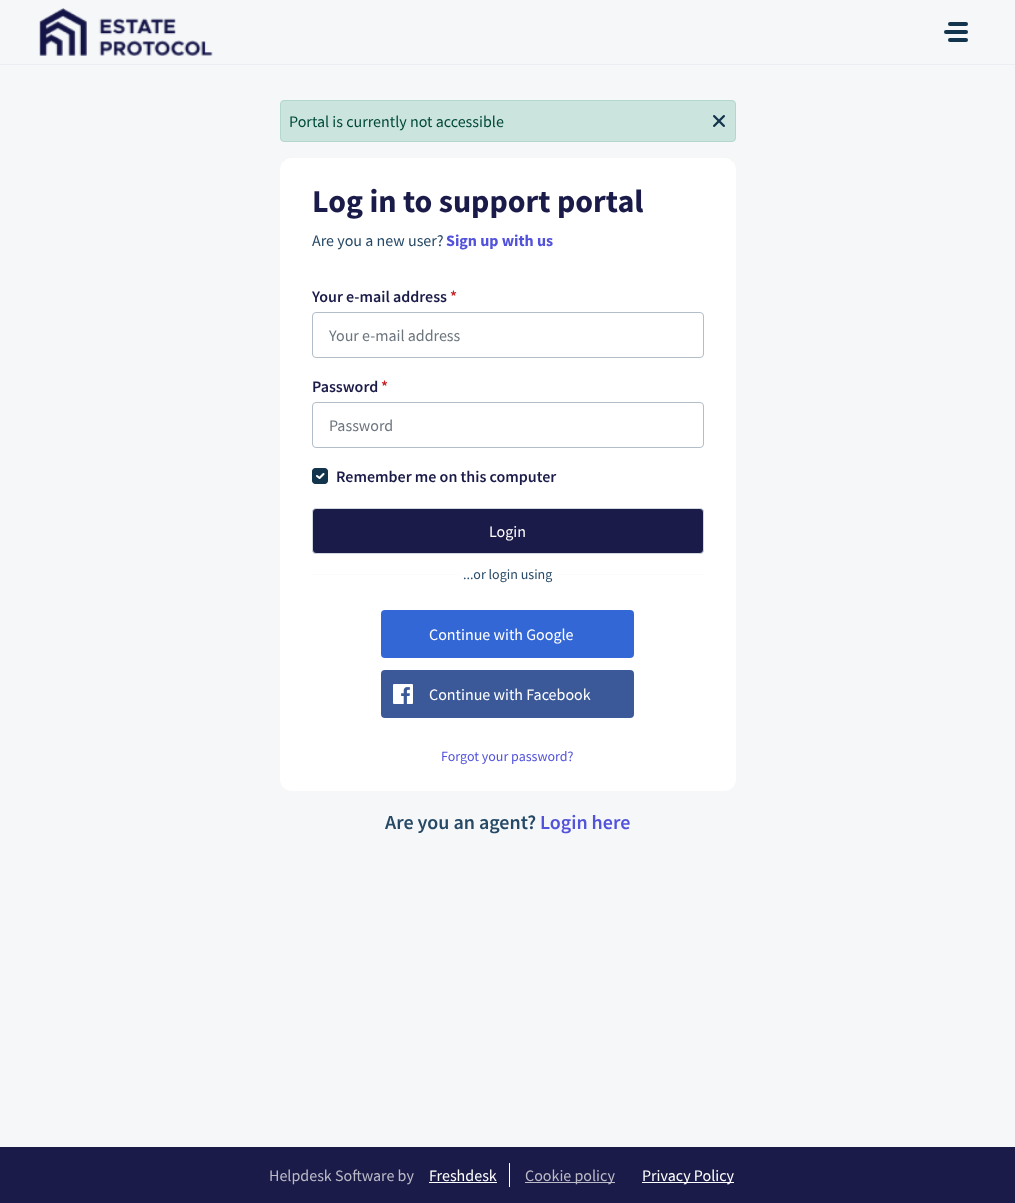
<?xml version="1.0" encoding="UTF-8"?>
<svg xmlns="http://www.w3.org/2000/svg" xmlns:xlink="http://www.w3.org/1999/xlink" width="1015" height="1203">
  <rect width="100%" height="100%" fill="#f5f7f9" />
  <rect y="64" width="1015" height="1" fill="#ebeff3" />
  <image x="39" y="8" width="174" height="48" xlink:href="image1.png" />
  <rect x="948" y="22" width="20" height="4" rx="2" fill="#12344d" />
  <rect x="944" y="30" width="24" height="4" rx="2" fill="#12344d" />
  <rect x="948" y="38" width="20" height="4" rx="2" fill="#12344d" />
  <rect x="280.5" y="100.5" width="455" height="41" rx="3.5" fill="#cce4de" stroke="#b3d7ce" />
  <image x="713" y="115" width="12" height="12" xlink:href="image2.png" />
  <rect x="280" y="158" width="456" height="633" rx="12" fill="#ffffff" />
  <rect x="312.5" y="312.5" width="391" height="45" rx="3.5" fill="none" stroke="#b1bdc8" />
  <rect x="312.5" y="402.5" width="391" height="45" rx="3.5" fill="none" stroke="#b1bdc8" />
  <rect x="312" y="468" width="16" height="16" rx="4" fill="#12344d" />
  <path d="M 317 476 l 2.5 2 l 4 -4" fill="none" stroke="#ffffff" stroke-width="2.1" stroke-linecap="round" stroke-linejoin="round" />
  <rect x="312.5" y="468.5" width="15" height="15" rx="3.5" fill="none" stroke="#12344d" />
  <rect x="312.5" y="508.5" width="391" height="45" rx="3.5" fill="#1b1b49" stroke="#cfd7df" />
  <rect x="312" y="574" width="392" height="1" fill="#fafbfc" />
  <rect x="458" y="574" width="99" height="1" fill="#ffffff" />
  <rect x="381" y="610" width="253" height="48" rx="4" fill="#3367d6" />
  <rect x="381" y="670" width="253" height="48" rx="4" fill="#3b5998" />
  <image x="393" y="684" width="20" height="20" xlink:href="image3.png" />
  <rect y="1147" width="1015" height="56" fill="#1b1b49" />
  <rect x="509" y="1163" width="1" height="24" fill="#ffffff" />
  <rect x="429" y="1182" width="68" height="1" fill="#ffffff" />
  <rect x="525" y="1182" width="90" height="1" fill="#bbbbc8" />
  <rect x="642" y="1182" width="92" height="1" fill="#ffffff" />
  <text x="289" y="127" style="font-family: Source Sans Pro; font-size: 16px; fill: #004937">Portal is currently not accessible</text>
  <text x="312" y="212" style="font-family: Source Sans Pro; font-size: 32px; font-weight: bold; fill: #1b1b49">Log in to support portal</text>
  <text x="312" y="246" style="font-family: Source Sans Pro; font-size: 16px; fill: #264966">Are you a new user?</text>
  <text x="446" y="246" style="font-family: Source Sans Pro; font-size: 16px; font-weight: bold; fill: #5252db">Sign up with us</text>
  <text x="312" y="302" style="font-family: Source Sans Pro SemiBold; font-size: 16px; font-weight: 600; fill: #1b1b49">Your e-mail address</text>
  <text x="450" y="302" style="font-family: Source Sans Pro SemiBold; font-size: 16px; font-weight: 600; fill: #c82124">*</text>
  <text x="329" y="341" style="font-family: Source Sans Pro; font-size: 16px; fill: #6c757d">Your e-mail address</text>
  <text x="312" y="392" style="font-family: Source Sans Pro SemiBold; font-size: 16px; font-weight: 600; fill: #1b1b49">Password</text>
  <text x="381" y="392" style="font-family: Source Sans Pro SemiBold; font-size: 16px; font-weight: 600; fill: #c82124">*</text>
  <text x="329" y="431" style="font-family: Source Sans Pro; font-size: 16px; fill: #6c757d">Password</text>
  <text x="336" y="482" style="font-family: Source Sans Pro SemiBold; font-size: 16px; font-weight: 600; fill: #1b1b49">Remember me on this computer</text>
  <text x="489" y="537" style="font-family: Source Sans Pro; font-size: 16px; fill: #ffffff">Login</text>
  <text x="463" y="579" style="font-family: Source Sans Pro; font-size: 14px; fill: #264966">...or login using</text>
  <text x="429" y="640" style="font-family: Source Sans Pro; font-size: 16px; fill: #ffffff">Continue with Google</text>
  <text x="429" y="700" style="font-family: Source Sans Pro; font-size: 16px; fill: #ffffff">Continue with Facebook</text>
  <text x="441" y="761" style="font-family: Source Sans Pro; font-size: 14px; fill: #5252db">Forgot your password?</text>
  <text x="385" y="829" style="font-family: Source Sans Pro SemiBold; font-size: 20px; font-weight: 600; fill: #264966">Are you an agent?</text>
  <text x="540" y="829" style="font-family: Source Sans Pro SemiBold; font-size: 20px; font-weight: 600; fill: #5252db">Login here</text>
  <text x="269" y="1181" style="font-family: Source Sans Pro; font-size: 16px; fill: #bbbbc8">Helpdesk Software by</text>
  <text x="429" y="1181" style="font-family: Source Sans Pro; font-size: 16px; fill: #ffffff">Freshdesk</text>
  <text x="525" y="1181" style="font-family: Source Sans Pro; font-size: 16px; fill: #bbbbc8">Cookie policy</text>
  <text x="642" y="1181" style="font-family: Source Sans Pro; font-size: 16px; fill: #ffffff">Privacy Policy</text>
</svg>
